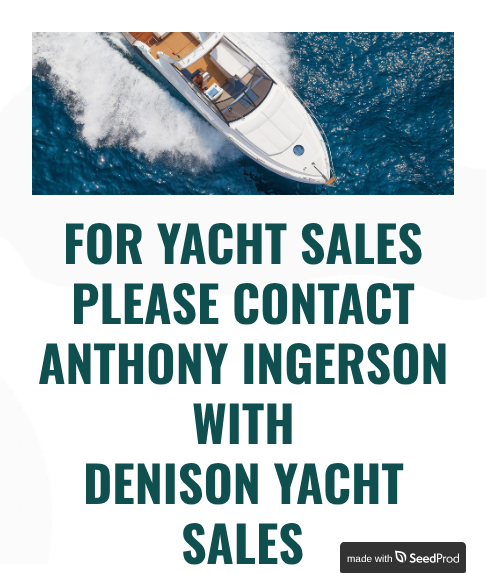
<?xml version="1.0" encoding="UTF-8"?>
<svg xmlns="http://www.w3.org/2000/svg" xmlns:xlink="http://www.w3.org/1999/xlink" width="486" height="573">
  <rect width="100%" height="100%" fill="#ffffff" />
  <image x="0" y="35" width="486" height="529" xlink:href="image1.png" />
  <image x="32" y="32" width="422" height="163" xlink:href="image2.png" />
  <path d="M 344 542 h 118 c 2 0 4 2 4 4 v 25 c 0 1 -1 2 -2 2 h -122 c -1 0 -2 -1 -2 -2 v -25 c 0 -2 2 -4 4 -4 z" fill="#333333" />
  <image x="395" y="550" width="64" height="13" xlink:href="image3.png" />
  <text x="63" y="264" style="font-family: Oswald; font-size: 50px; font-weight: bold; fill: #104f50">FOR YACHT SALES</text>
  <text x="71" y="324" style="font-family: Oswald; font-size: 50px; font-weight: bold; fill: #104f50">PLEASE CONTACT</text>
  <text x="38" y="384" style="font-family: Oswald; font-size: 50px; font-weight: bold; fill: #104f50">ANTHONY INGERSON</text>
  <text x="192" y="444" style="font-family: Oswald; font-size: 50px; font-weight: bold; fill: #104f50">WITH</text>
  <text x="83" y="504" style="font-family: Oswald; font-size: 50px; font-weight: bold; fill: #104f50">DENISON YACHT</text>
  <text x="181" y="564" style="font-family: Oswald; font-size: 50px; font-weight: bold; fill: #104f50">SALES</text>
  <text x="347" y="562" style="font-family: Liberation Sans; font-size: 10px; fill: #ffffff">made with</text>
</svg>
